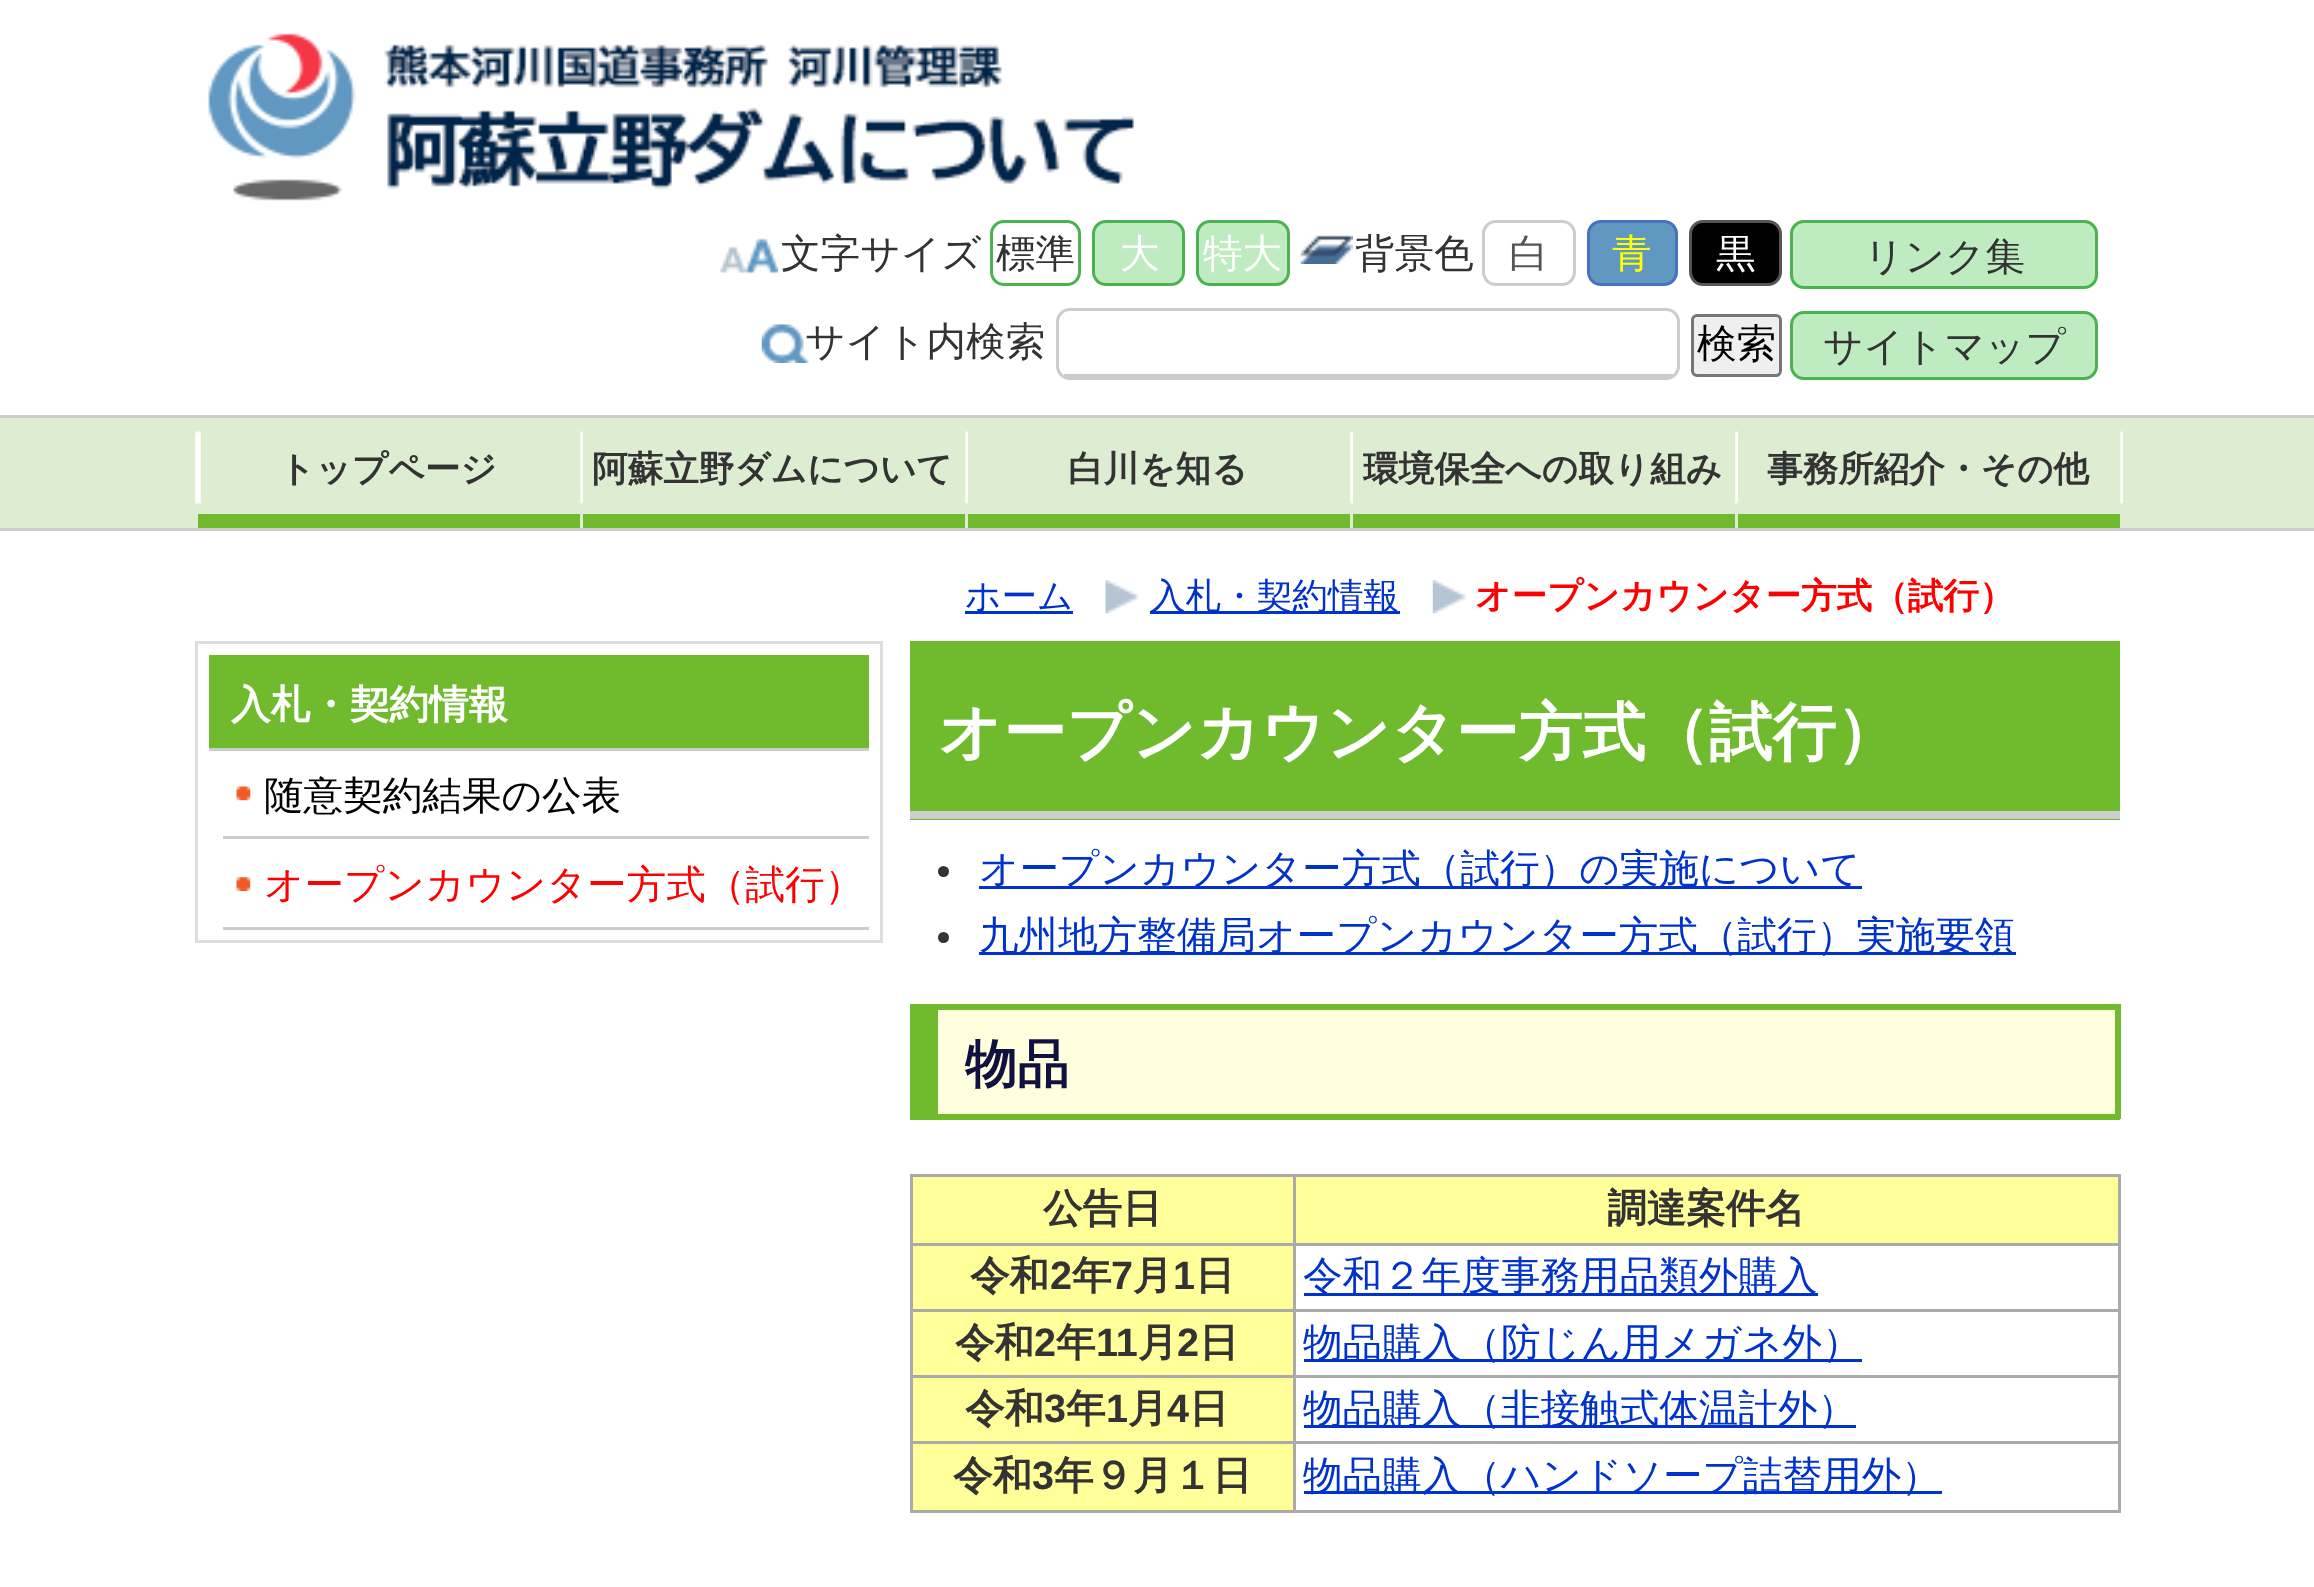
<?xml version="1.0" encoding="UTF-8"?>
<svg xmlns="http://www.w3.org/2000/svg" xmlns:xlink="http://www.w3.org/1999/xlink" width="2314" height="1587">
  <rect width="100%" height="100%" fill="#ffffff" />
  <image x="208" y="33" width="926" height="168" xlink:href="image1.png" />
  <image x="720" y="238" width="59" height="36" xlink:href="image2.png" />
  <rect x="991.5" y="221.5" width="88" height="63" rx="12.5" fill="none" stroke="#49b34f" stroke-width="3" />
  <rect x="1093.5" y="221.5" width="90" height="63" rx="12.5" fill="#beebc0" stroke="#49b34f" stroke-width="3" />
  <rect x="1197.5" y="221.5" width="91" height="63" rx="12.5" fill="#beebc0" stroke="#49b34f" stroke-width="3" />
  <image x="1300" y="235" width="53" height="29" xlink:href="image3.png" />
  <rect x="1483.5" y="221.5" width="91" height="63" rx="12.5" fill="none" stroke="#cccccc" stroke-width="3" />
  <rect x="1588.5" y="221.5" width="88" height="63" rx="12.5" fill="#6198c2" stroke="#4573bf" stroke-width="3" />
  <rect x="1690.5" y="221.5" width="90" height="63" rx="12.5" fill="#000000" stroke="#555555" stroke-width="3" />
  <image x="761" y="324" width="48" height="39" xlink:href="image4.png" />
  <rect x="1057.5" y="309.5" width="621" height="69" rx="12.5" fill="none" stroke="#cccccc" stroke-width="3" />
  <rect x="1064" y="374" width="611" height="3" fill="#cccccc" />
  <rect x="1692.5" y="315.5" width="88" height="60" rx="4.5" fill="#efefef" stroke="#767676" stroke-width="3" />
  <rect x="1791.5" y="221.5" width="305" height="66" rx="12.5" fill="#beebc0" stroke="#49b34f" stroke-width="3" />
  <rect x="1791.5" y="312.5" width="305" height="66" rx="12.5" fill="#beebc0" stroke="#49b34f" stroke-width="3" />
  <rect y="418" width="2314" height="110" fill="#ddedd2" />
  <rect y="415" width="2314" height="3" fill="#cccccc" />
  <rect y="528" width="2314" height="3" fill="#cccccc" />
  <image x="195" y="431" width="6" height="73" xlink:href="image5.png" />
  <image x="580" y="431" width="3" height="73" xlink:href="image6.png" />
  <rect x="198" y="514" width="382" height="14" fill="#70bb2d" />
  <image x="965" y="431" width="3" height="73" xlink:href="image6.png" />
  <rect x="583" y="514" width="382" height="14" fill="#70bb2d" />
  <image x="1350" y="431" width="3" height="73" xlink:href="image6.png" />
  <rect x="968" y="514" width="382" height="14" fill="#70bb2d" />
  <image x="1735" y="431" width="3" height="73" xlink:href="image6.png" />
  <rect x="1353" y="514" width="382" height="14" fill="#70bb2d" />
  <image x="2120" y="431" width="3" height="73" xlink:href="image6.png" />
  <rect x="1738" y="514" width="382" height="14" fill="#70bb2d" />
  <rect x="196.5" y="642.5" width="685" height="299" fill="none" stroke="#dddddd" stroke-width="3" />
  <rect x="209" y="655" width="660" height="93" fill="#70bb2d" />
  <rect x="209" y="748" width="660" height="3" fill="#cccccc" />
  <image x="236" y="786" width="15" height="15" xlink:href="image7.png" />
  <rect x="223" y="836" width="646" height="3" fill="#cccccc" />
  <image x="236" y="877" width="15" height="14" xlink:href="image8.png" />
  <rect x="223" y="927" width="646" height="3" fill="#cccccc" />
  <rect x="965" y="611" width="108" height="3" fill="#0033cc" />
  <image x="1105" y="580" width="34" height="34" xlink:href="image9.png" />
  <rect x="1150" y="611" width="250" height="3" fill="#0033cc" />
  <image x="1432" y="580" width="34" height="34" xlink:href="image10.png" />
  <rect x="910" y="641" width="1210" height="179" fill="#70bb2d" />
  <rect x="910" y="811" width="1210" height="8" fill="#cccccc" />
  <circle cx="943.5" cy="871.5" r="5.5" fill="#333333" />
  <rect x="979" y="886" width="883" height="3" fill="#0033cc" />
  <circle cx="943.5" cy="937.5" r="5.5" fill="#333333" />
  <rect x="979" y="952" width="1037" height="3" fill="#0033cc" />
  <rect x="938" y="1010" width="1177" height="104" fill="#ffffdd" />
  <rect x="938" y="1004" width="1182" height="6" fill="#70bb2d" />
  <rect x="2115" y="1004" width="6" height="115" fill="#70bb2d" />
  <rect x="910" y="1114" width="1210" height="6" fill="#70bb2d" />
  <rect x="910" y="1004" width="28" height="110" fill="#70bb2d" />
  <rect x="913" y="1177" width="380" height="66" fill="#ffff99" />
  <rect x="1293" y="1174" width="827" height="3" fill="#aaaaaa" />
  <rect x="1293" y="1243" width="827" height="3" fill="#aaaaaa" />
  <rect x="1293" y="1309" width="827" height="3" fill="#aaaaaa" />
  <rect x="1293" y="1375" width="827" height="3" fill="#aaaaaa" />
  <rect x="1293" y="1441" width="827" height="3" fill="#aaaaaa" />
  <rect x="2118" y="1441" width="3" height="72" fill="#aaaaaa" />
  <rect x="1293" y="1510" width="827" height="3" fill="#aaaaaa" />
  <rect x="1293" y="1441" width="3" height="72" fill="#aaaaaa" />
  <rect x="910" y="1441" width="385" height="3" fill="#aaaaaa" />
  <rect x="1293" y="1375" width="3" height="69" fill="#aaaaaa" />
  <rect x="910" y="1375" width="385" height="3" fill="#aaaaaa" />
  <rect x="1293" y="1309" width="3" height="69" fill="#aaaaaa" />
  <rect x="910" y="1309" width="385" height="3" fill="#aaaaaa" />
  <rect x="1293" y="1243" width="3" height="69" fill="#aaaaaa" />
  <rect x="910" y="1243" width="385" height="3" fill="#aaaaaa" />
  <rect x="1293" y="1174" width="3" height="72" fill="#aaaaaa" />
  <rect x="910" y="1174" width="385" height="3" fill="#aaaaaa" />
  <rect x="910" y="1510" width="385" height="3" fill="#aaaaaa" />
  <rect x="910" y="1441" width="3" height="72" fill="#aaaaaa" />
  <rect x="910" y="1375" width="3" height="69" fill="#aaaaaa" />
  <rect x="910" y="1309" width="3" height="69" fill="#aaaaaa" />
  <rect x="910" y="1243" width="3" height="69" fill="#aaaaaa" />
  <rect x="910" y="1174" width="3" height="72" fill="#aaaaaa" />
  <rect x="1296" y="1177" width="822" height="66" fill="#ffff99" />
  <rect x="2118" y="1375" width="3" height="69" fill="#aaaaaa" />
  <rect x="2118" y="1309" width="3" height="69" fill="#aaaaaa" />
  <rect x="2118" y="1243" width="3" height="69" fill="#aaaaaa" />
  <rect x="2118" y="1174" width="3" height="72" fill="#aaaaaa" />
  <rect x="913" y="1246" width="380" height="63" fill="#ffff99" />
  <rect x="1304" y="1293" width="514" height="3" fill="#0033cc" />
  <rect x="913" y="1312" width="380" height="63" fill="#ffff99" />
  <rect x="1304" y="1359" width="558" height="3" fill="#0033cc" />
  <rect x="913" y="1378" width="380" height="63" fill="#ffff99" />
  <rect x="1304" y="1425" width="552" height="3" fill="#0033cc" />
  <rect x="913" y="1444" width="380" height="66" fill="#ffff99" />
  <rect x="1304" y="1491" width="638" height="3" fill="#0033cc" />
  <text x="781" y="267" style="font-family: WenQuanYi Zen Hei; font-size: 39.6px; font-weight: 500; fill: #333333">文字サイズ</text>
  <text x="996" y="267" style="font-family: WenQuanYi Zen Hei; font-size: 39.6px; font-weight: 500; fill: #333333">標準</text>
  <text x="1120" y="267" style="font-family: WenQuanYi Zen Hei; font-size: 39.6px; font-weight: 500; fill: #ffffff">大</text>
  <text x="1203" y="267" style="font-family: WenQuanYi Zen Hei; font-size: 39.6px; font-weight: 500; fill: #ffffff">特大</text>
  <text x="1355" y="267" style="font-family: WenQuanYi Zen Hei; font-size: 39.6px; font-weight: 500; fill: #333333">背景色</text>
  <text x="1509" y="267" style="font-family: WenQuanYi Zen Hei; font-size: 39.6px; font-weight: 500; fill: #555555">白</text>
  <text x="1612" y="267" style="font-family: WenQuanYi Zen Hei; font-size: 39.6px; font-weight: 500; fill: #ffff00">青</text>
  <text x="1716" y="267" style="font-family: WenQuanYi Zen Hei; font-size: 39.6px; font-weight: 500; fill: #ffffff">黒</text>
  <text x="805" y="355" style="font-family: WenQuanYi Zen Hei; font-size: 39.6px; font-weight: 500; fill: #333333">サイト内検索</text>
  <text x="1697" y="357" style="font-family: WenQuanYi Zen Hei; font-size: 39.6px; font-weight: 500; fill: #000000">検索</text>
  <text x="1864" y="270" style="font-family: WenQuanYi Zen Hei; font-size: 39.6px; font-weight: 500; fill: #333333">リンク集</text>
  <text x="1823" y="360" style="font-family: WenQuanYi Zen Hei; font-size: 39.6px; font-weight: 500; fill: #333333">サイトマップ</text>
  <text x="279" y="481" style="font-family: WenQuanYi Zen Hei; font-size: 35.6px; font-weight: bold; fill: #333333">トップページ</text>
  <text x="592" y="481" style="font-family: WenQuanYi Zen Hei; font-size: 35.6px; font-weight: bold; fill: #333333">阿蘇立野ダムについて</text>
  <text x="1068" y="481" style="font-family: WenQuanYi Zen Hei; font-size: 35.6px; font-weight: bold; fill: #333333">白川を知る</text>
  <text x="1363" y="481" style="font-family: WenQuanYi Zen Hei; font-size: 35.6px; font-weight: bold; fill: #333333">環境保全への取り組み</text>
  <text x="1767" y="481" style="font-family: WenQuanYi Zen Hei; font-size: 35.6px; font-weight: bold; fill: #333333">事務所紹介・その他</text>
  <text x="231" y="718" style="font-family: WenQuanYi Zen Hei; font-size: 39.6px; font-weight: bold; fill: #ffffff">入札・契約情報</text>
  <text x="264" y="809" style="font-family: WenQuanYi Zen Hei; font-size: 39.6px; font-weight: 500; fill: #000000">随意契約結果の公表</text>
  <text x="264" y="898" style="font-family: WenQuanYi Zen Hei; font-size: 39.6px; font-weight: 500; fill: #ff0000">オープンカウンター方式（試行）</text>
  <text x="965" y="608" style="font-family: WenQuanYi Zen Hei; font-size: 35.6px; font-weight: 500; fill: #0033cc">ホーム</text>
  <text x="1150" y="608" style="font-family: WenQuanYi Zen Hei; font-size: 35.6px; font-weight: 500; fill: #0033cc">入札・契約情報</text>
  <text x="1475" y="608" style="font-family: WenQuanYi Zen Hei; font-size: 35.6px; font-weight: bold; fill: #ff0000">オープンカウンター方式（試行）</text>
  <text x="938" y="754" style="font-family: WenQuanYi Zen Hei; font-size: 63.4px; font-weight: bold; fill: #ffffff">オープンカウンター方式（試行）</text>
  <text x="979" y="882" style="font-family: WenQuanYi Zen Hei; font-size: 39.6px; font-weight: 500; fill: #0033cc">オープンカウンター方式（試行）の実施について</text>
  <text x="979" y="949" style="font-family: WenQuanYi Zen Hei; font-size: 39.6px; font-weight: 500; fill: #0033cc">九州地方整備局オープンカウンター方式（試行）実施要領</text>
  <text x="965" y="1082" style="font-family: WenQuanYi Zen Hei; font-size: 52px; font-weight: bold; fill: #111141">物品</text>
  <text x="1043" y="1222" style="font-family: WenQuanYi Zen Hei; font-size: 39.6px; font-weight: bold; fill: #333333">公告日</text>
  <text x="1607" y="1222" style="font-family: WenQuanYi Zen Hei; font-size: 39.6px; font-weight: bold; fill: #333333">調達案件名</text>
  <text x="970" y="1289" style="font-family: WenQuanYi Zen Hei; font-size: 39.6px; font-weight: bold; fill: #333333">令和</text>
  <text x="1050" y="1289" style="font-family: Liberation Sans; font-size: 39.6px; font-weight: bold; fill: #333333">2</text>
  <text x="1072" y="1289" style="font-family: WenQuanYi Zen Hei; font-size: 39.6px; font-weight: bold; fill: #333333">年</text>
  <text x="1111" y="1289" style="font-family: Liberation Sans; font-size: 39.6px; font-weight: bold; fill: #333333">7</text>
  <text x="1133" y="1289" style="font-family: WenQuanYi Zen Hei; font-size: 39.6px; font-weight: bold; fill: #333333">月</text>
  <text x="1173" y="1289" style="font-family: Liberation Sans; font-size: 39.6px; font-weight: bold; fill: #333333">1</text>
  <text x="1195" y="1289" style="font-family: WenQuanYi Zen Hei; font-size: 39.6px; font-weight: bold; fill: #333333">日</text>
  <text x="1303" y="1289" style="font-family: WenQuanYi Zen Hei; font-size: 39.6px; font-weight: 500; fill: #0033cc">令和２年度事務用品類外購入</text>
  <text x="955" y="1356" style="font-family: WenQuanYi Zen Hei; font-size: 39.6px; font-weight: bold; fill: #333333">令和</text>
  <text x="1034" y="1356" style="font-family: Liberation Sans; font-size: 39.6px; font-weight: bold; fill: #333333">2</text>
  <text x="1056" y="1356" style="font-family: WenQuanYi Zen Hei; font-size: 39.6px; font-weight: bold; fill: #333333">年</text>
  <text x="1096" y="1356" style="font-family: Liberation Sans; font-size: 39.6px; font-weight: bold; fill: #333333">11</text>
  <text x="1138" y="1356" style="font-family: WenQuanYi Zen Hei; font-size: 39.6px; font-weight: bold; fill: #333333">月</text>
  <text x="1177" y="1356" style="font-family: Liberation Sans; font-size: 39.6px; font-weight: bold; fill: #333333">2</text>
  <text x="1199" y="1356" style="font-family: WenQuanYi Zen Hei; font-size: 39.6px; font-weight: bold; fill: #333333">日</text>
  <text x="1303" y="1356" style="font-family: WenQuanYi Zen Hei; font-size: 39.6px; font-weight: 500; fill: #0033cc">物品購入（防じん用メガネ外）</text>
  <text x="965" y="1422" style="font-family: WenQuanYi Zen Hei; font-size: 39.6px; font-weight: bold; fill: #333333">令和</text>
  <text x="1044" y="1422" style="font-family: Liberation Sans; font-size: 39.6px; font-weight: bold; fill: #333333">3</text>
  <text x="1066" y="1422" style="font-family: WenQuanYi Zen Hei; font-size: 39.6px; font-weight: bold; fill: #333333">年</text>
  <text x="1106" y="1422" style="font-family: Liberation Sans; font-size: 39.6px; font-weight: bold; fill: #333333">1</text>
  <text x="1128" y="1422" style="font-family: WenQuanYi Zen Hei; font-size: 39.6px; font-weight: bold; fill: #333333">月</text>
  <text x="1167" y="1422" style="font-family: Liberation Sans; font-size: 39.6px; font-weight: bold; fill: #333333">4</text>
  <text x="1189" y="1422" style="font-family: WenQuanYi Zen Hei; font-size: 39.6px; font-weight: bold; fill: #333333">日</text>
  <text x="1303" y="1422" style="font-family: WenQuanYi Zen Hei; font-size: 39.6px; font-weight: 500; fill: #0033cc">物品購入（非接触式体温計外）</text>
  <text x="953" y="1489" style="font-family: WenQuanYi Zen Hei; font-size: 39.6px; font-weight: bold; fill: #333333">令和</text>
  <text x="1032" y="1489" style="font-family: Liberation Sans; font-size: 39.6px; font-weight: bold; fill: #333333">3</text>
  <text x="1054" y="1489" style="font-family: WenQuanYi Zen Hei; font-size: 39.6px; font-weight: bold; fill: #333333">年９月１日</text>
  <text x="1303" y="1489" style="font-family: WenQuanYi Zen Hei; font-size: 39.6px; font-weight: 500; fill: #0033cc">物品購入（ハンドソープ詰替用外）</text>
</svg>
